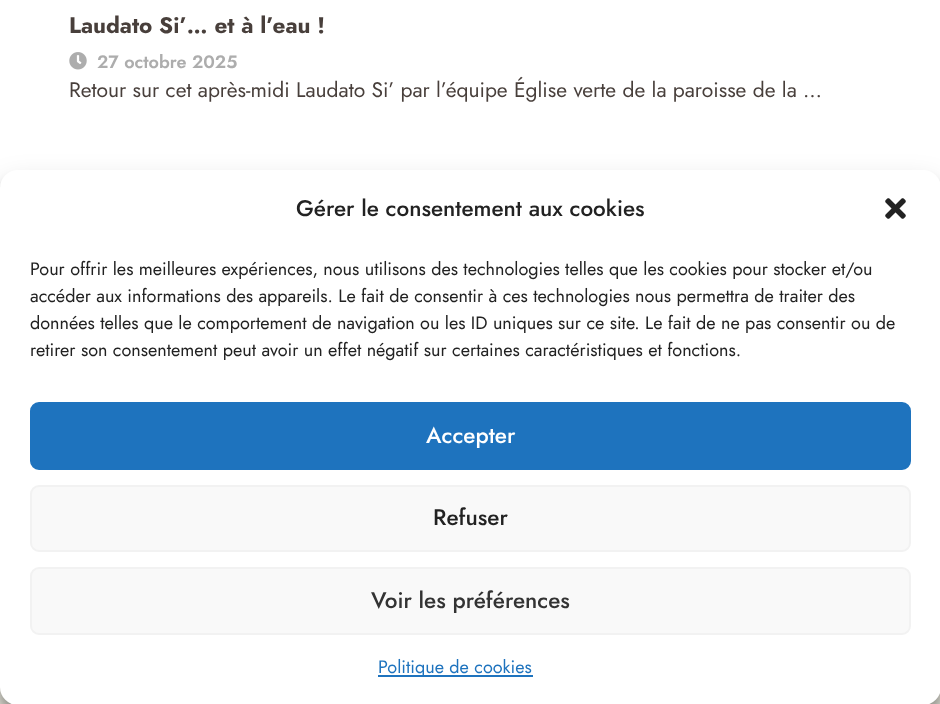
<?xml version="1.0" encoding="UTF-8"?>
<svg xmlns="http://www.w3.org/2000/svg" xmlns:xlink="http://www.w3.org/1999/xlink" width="940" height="704">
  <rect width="100%" height="100%" fill="#e7e6dc" />
  <rect y="-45" width="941" height="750" rx="45" fill="#ffffff" />
  <image x="69" y="52" width="18" height="18" xlink:href="image1.png" />
  <rect y="179" width="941" height="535" rx="18" fill="#000000" fill-opacity="0.23" filter="blur(4.5px)" />
  <rect y="185" width="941" height="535" rx="18" fill="#000000" fill-opacity="0.19" filter="blur(15px)" />
  <rect y="170" width="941" height="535" rx="18" fill="#ffffff" />
  <image x="885" y="198" width="21" height="21" xlink:href="image2.png" />
  <rect x="31" y="403" width="879" height="66" rx="8" fill="#1e73be" stroke="#1e73be" stroke-width="2" />
  <rect x="31" y="486" width="879" height="65" rx="8" fill="#f9f9f9" stroke="#f2f2f2" stroke-width="2" />
  <rect x="31" y="568" width="879" height="66" rx="8" fill="#f9f9f9" stroke="#f2f2f2" stroke-width="2" />
  <rect x="378" y="675" width="155" height="2" fill="#1e73be" />
  <text x="69" y="33" style="font-family: Jost; font-size: 22.5px; font-weight: bold; fill: #483f3b">Laudato Si’… et à l’eau !</text>
  <text x="97" y="68" style="font-family: Jost; font-size: 18px; font-weight: 600; fill: #adadad">27 octobre 2025</text>
  <text x="69" y="97" style="font-family: Jost; font-size: 21px; fill: #483f3b">Retour sur cet après-midi Laudato Si’ par l’équipe Église verte de la paroisse de la …</text>
  <text x="296" y="216" style="font-family: Jost; font-size: 22.5px; font-weight: 500; fill: #222222">Gérer le consentement aux cookies</text>
  <text x="30" y="275" style="font-family: Jost; font-size: 18px; fill: #222222">Pour offrir les meilleures expériences, nous utilisons des technologies telles que les cookies pour stocker et/ou</text>
  <text x="30" y="302" style="font-family: Jost; font-size: 18px; fill: #222222">accéder aux informations des appareils. Le fait de consentir à ces technologies nous permettra de traiter des</text>
  <text x="30" y="329" style="font-family: Jost; font-size: 18px; fill: #222222">données telles que le comportement de navigation ou les ID uniques sur ce site. Le fait de ne pas consentir ou de</text>
  <text x="30" y="356" style="font-family: Jost; font-size: 18px; fill: #222222">retirer son consentement peut avoir un effet négatif sur certaines caractéristiques et fonctions.</text>
  <text x="426" y="443" style="font-family: Jost; font-size: 22.5px; font-weight: 500; fill: #ffffff">Accepter</text>
  <text x="433" y="525" style="font-family: Jost; font-size: 22.5px; font-weight: 500; fill: #222222">Refuser</text>
  <text x="371" y="608" style="font-family: Jost; font-size: 22.5px; font-weight: 500; fill: #333333">Voir les préférences</text>
  <text x="378" y="673" style="font-family: Jost; font-size: 18px; fill: #1e73be">Politique de cookies</text>
</svg>
